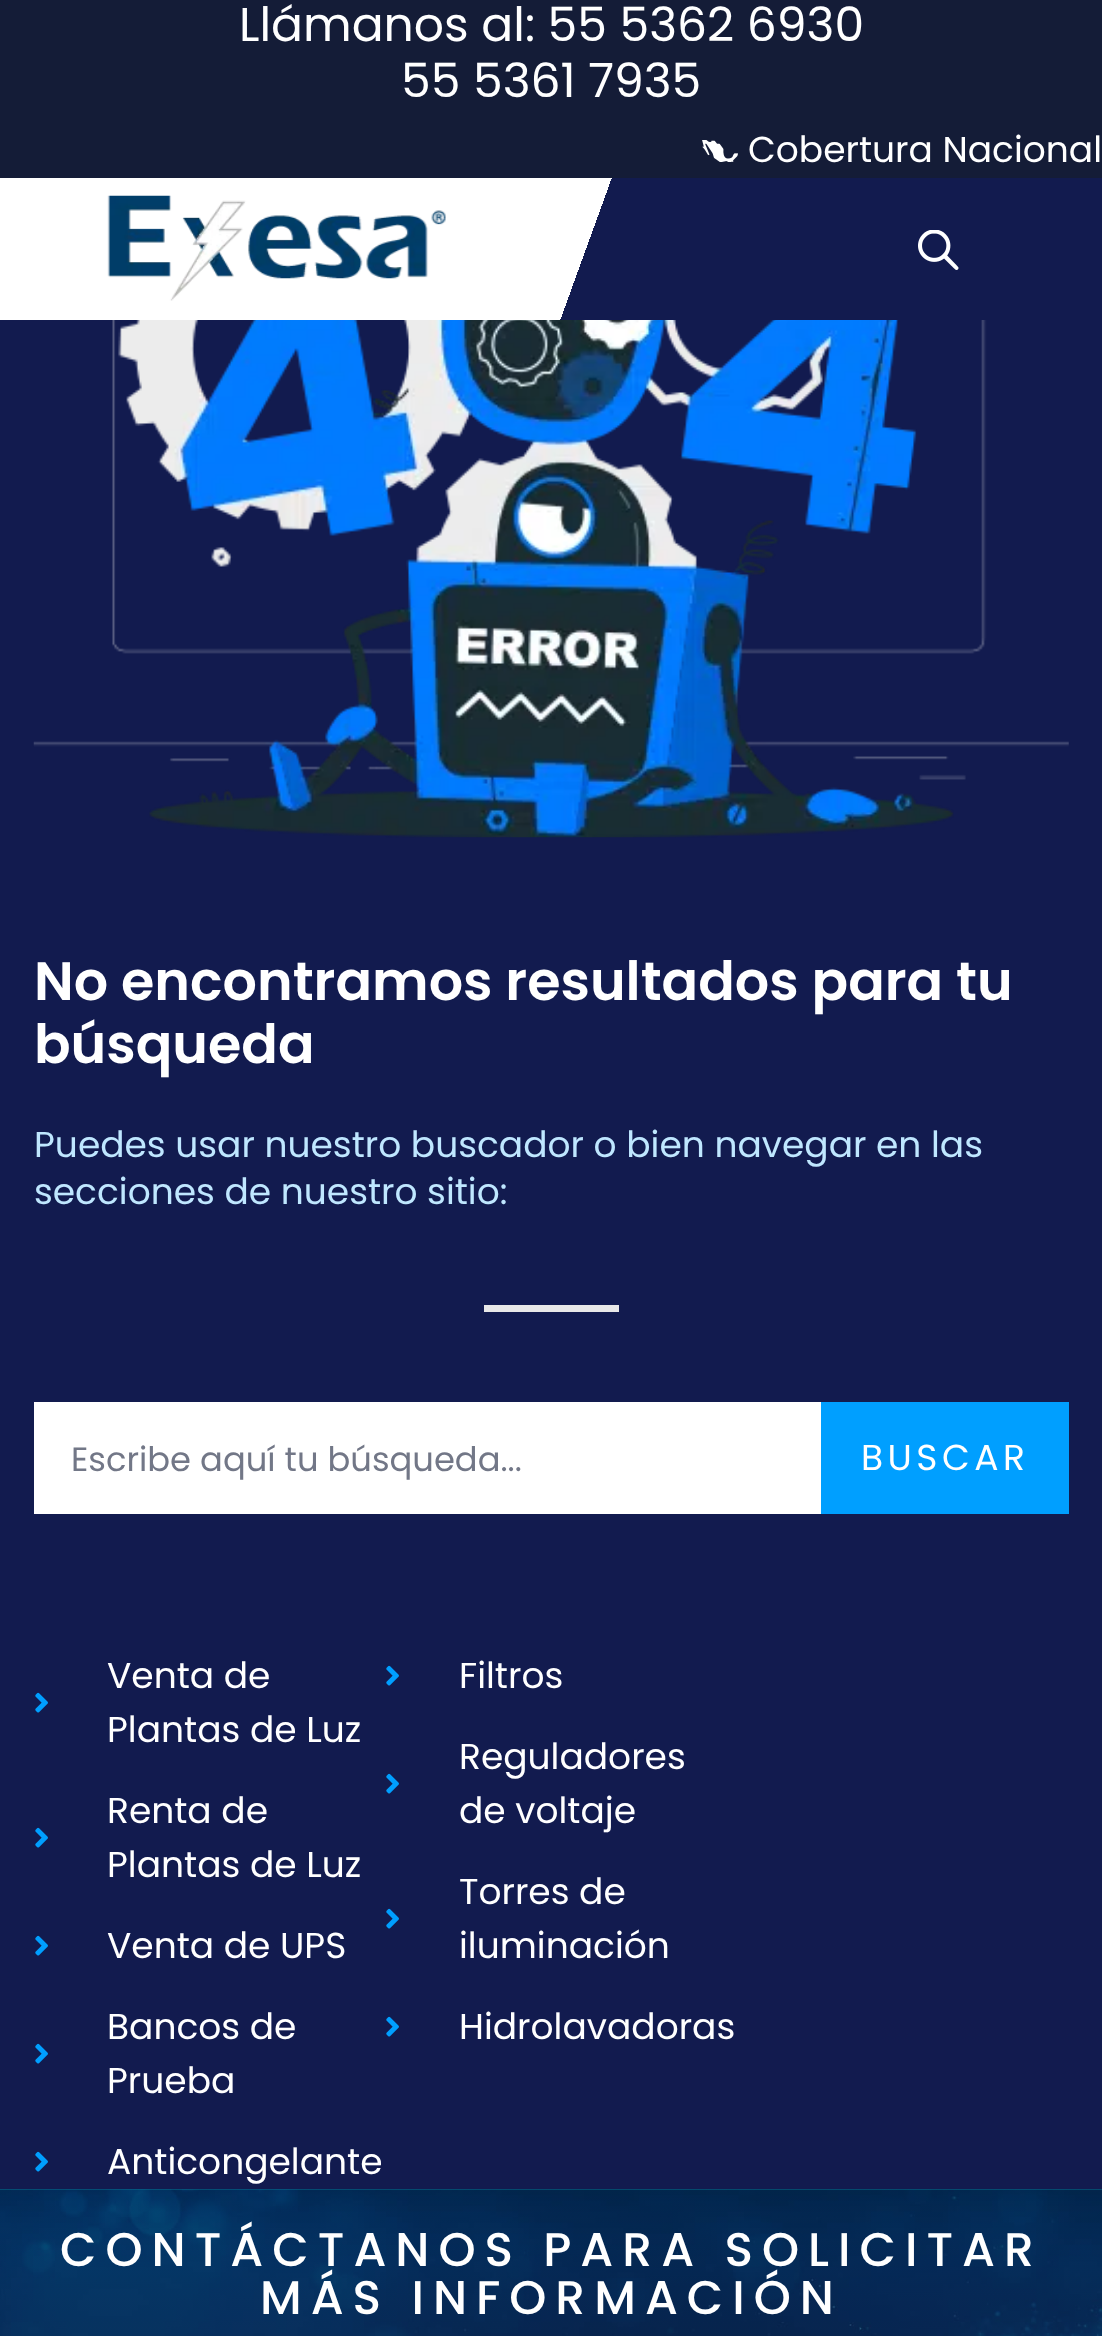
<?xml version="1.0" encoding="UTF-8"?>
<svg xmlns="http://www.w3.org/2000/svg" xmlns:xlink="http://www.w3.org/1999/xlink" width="1102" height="2336">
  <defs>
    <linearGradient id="g1" gradientUnits="userSpaceOnUse" x1="561" y1="152" x2="1093" y2="345"><stop offset="0.1" stop-color="#ffffff" /><stop offset="0.1" stop-color="#121b4f" /></linearGradient>
    <linearGradient id="g2" gradientUnits="userSpaceOnUse" x1="551" y1="2189" x2="551" y2="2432"><stop offset="0" stop-color="#033762" stop-opacity="0.5" /><stop offset="1" stop-color="#141c37" stop-opacity="0.5" /></linearGradient>
  </defs>
  <rect width="100%" height="100%" fill="#121b4f" />
  <rect width="1102" height="178" fill="#141c37" />
  <image x="702" y="140" width="36" height="22" xlink:href="image1.png" />
  <rect y="178" width="551" height="142" fill="#ffffff" />
  <image x="107" y="195" width="339" height="106" xlink:href="image2.png" />
  <rect x="551" y="178" width="61" height="142" fill="url(#g1)" />
  <image x="918" y="230" width="41" height="40" xlink:href="image3.png" />
  <image x="33" y="320" width="1036" height="518" xlink:href="image4.png" />
  <rect x="484" y="1305" width="135" height="7" fill="#e8e8e8" />
  <rect x="34" y="1402" width="787" height="112" fill="#ffffff" />
  <rect x="821" y="1402" width="248" height="112" fill="#009fff" />
  <image x="35" y="1692" width="13" height="21" xlink:href="image5.png" />
  <image x="35" y="1827" width="13" height="21" xlink:href="image5.png" />
  <image x="35" y="1935" width="13" height="21" xlink:href="image5.png" />
  <image x="35" y="2043" width="13" height="21" xlink:href="image5.png" />
  <image x="35" y="2151" width="13" height="21" xlink:href="image5.png" />
  <image x="386" y="1665" width="13" height="21" xlink:href="image6.png" />
  <image x="386" y="1773" width="13" height="21" xlink:href="image6.png" />
  <image x="386" y="1908" width="13" height="21" xlink:href="image6.png" />
  <image x="386" y="2016" width="13" height="21" xlink:href="image6.png" />
  <rect y="2189" width="1102" height="1" fill="#0ba5be" />
  <image x="0" y="2189" width="1102" height="147" xlink:href="image7.png" />
  <rect y="2189" width="1102" height="147" fill="url(#g2)" />
  <text x="239" y="41" style="font-family: Poppins; font-size: 47.25px; fill: #ffffff">Llámanos al: 55 5362 6930</text>
  <text x="401" y="97" style="font-family: Poppins; font-size: 47.25px; fill: #ffffff">55 5361 7935</text>
  <text x="748" y="162" style="font-family: Poppins; font-size: 36px; fill: #ffffff">Cobertura Nacional</text>
  <text x="34" y="1000" style="font-family: Poppins; font-size: 54px; font-weight: 600; fill: #ffffff">No encontramos resultados para tu</text>
  <text x="34" y="1063" style="font-family: Poppins; font-size: 54px; font-weight: 600; fill: #ffffff">búsqueda</text>
  <text x="34" y="1157" style="font-family: Poppins; font-size: 36px; fill: #bfe7ff">Puedes usar nuestro buscador o bien navegar en las</text>
  <text x="34" y="1204" style="font-family: Poppins; font-size: 36px; fill: #bfe7ff">secciones de nuestro sitio:</text>
  <text x="71" y="1471" style="font-family: Poppins; font-size: 33.75px; fill: #727787">Escribe aquí tu búsqueda...</text>
  <text x="861" y="1470" style="font-family: Poppins; font-size: 36px; letter-spacing: 4.5px; fill: #ffffff">BUSCAR</text>
  <text x="107" y="1688" style="font-family: Poppins; font-size: 36px; fill: #ffffff">Venta de</text>
  <text x="107" y="1742" style="font-family: Poppins; font-size: 36px; fill: #ffffff">Plantas de Luz</text>
  <text x="107" y="1823" style="font-family: Poppins; font-size: 36px; fill: #ffffff">Renta de</text>
  <text x="107" y="1877" style="font-family: Poppins; font-size: 36px; fill: #ffffff">Plantas de Luz</text>
  <text x="107" y="1958" style="font-family: Poppins; font-size: 36px; fill: #ffffff">Venta de UPS</text>
  <text x="107" y="2039" style="font-family: Poppins; font-size: 36px; fill: #ffffff">Bancos de</text>
  <text x="107" y="2093" style="font-family: Poppins; font-size: 36px; fill: #ffffff">Prueba</text>
  <text x="107" y="2174" style="font-family: Poppins; font-size: 36px; fill: #ffffff">Anticongelante</text>
  <text x="459" y="1688" style="font-family: Poppins; font-size: 36px; fill: #ffffff">Filtros</text>
  <text x="459" y="1769" style="font-family: Poppins; font-size: 36px; fill: #ffffff">Reguladores</text>
  <text x="459" y="1823" style="font-family: Poppins; font-size: 36px; fill: #ffffff">de voltaje</text>
  <text x="459" y="1904" style="font-family: Poppins; font-size: 36px; fill: #ffffff">Torres de</text>
  <text x="459" y="1958" style="font-family: Poppins; font-size: 36px; fill: #ffffff">iluminación</text>
  <text x="459" y="2039" style="font-family: Poppins; font-size: 36px; fill: #ffffff">Hidrolavadoras</text>
  <text x="60" y="2266" style="font-family: Poppins; font-size: 47.25px; font-weight: 500; letter-spacing: 9px; fill: #ffffff">CONTÁCTANOS PARA SOLICITAR</text>
  <text x="260" y="2314" style="font-family: Poppins; font-size: 47.25px; font-weight: 500; letter-spacing: 9px; fill: #ffffff">MÁS INFORMACIÓN</text>
</svg>
